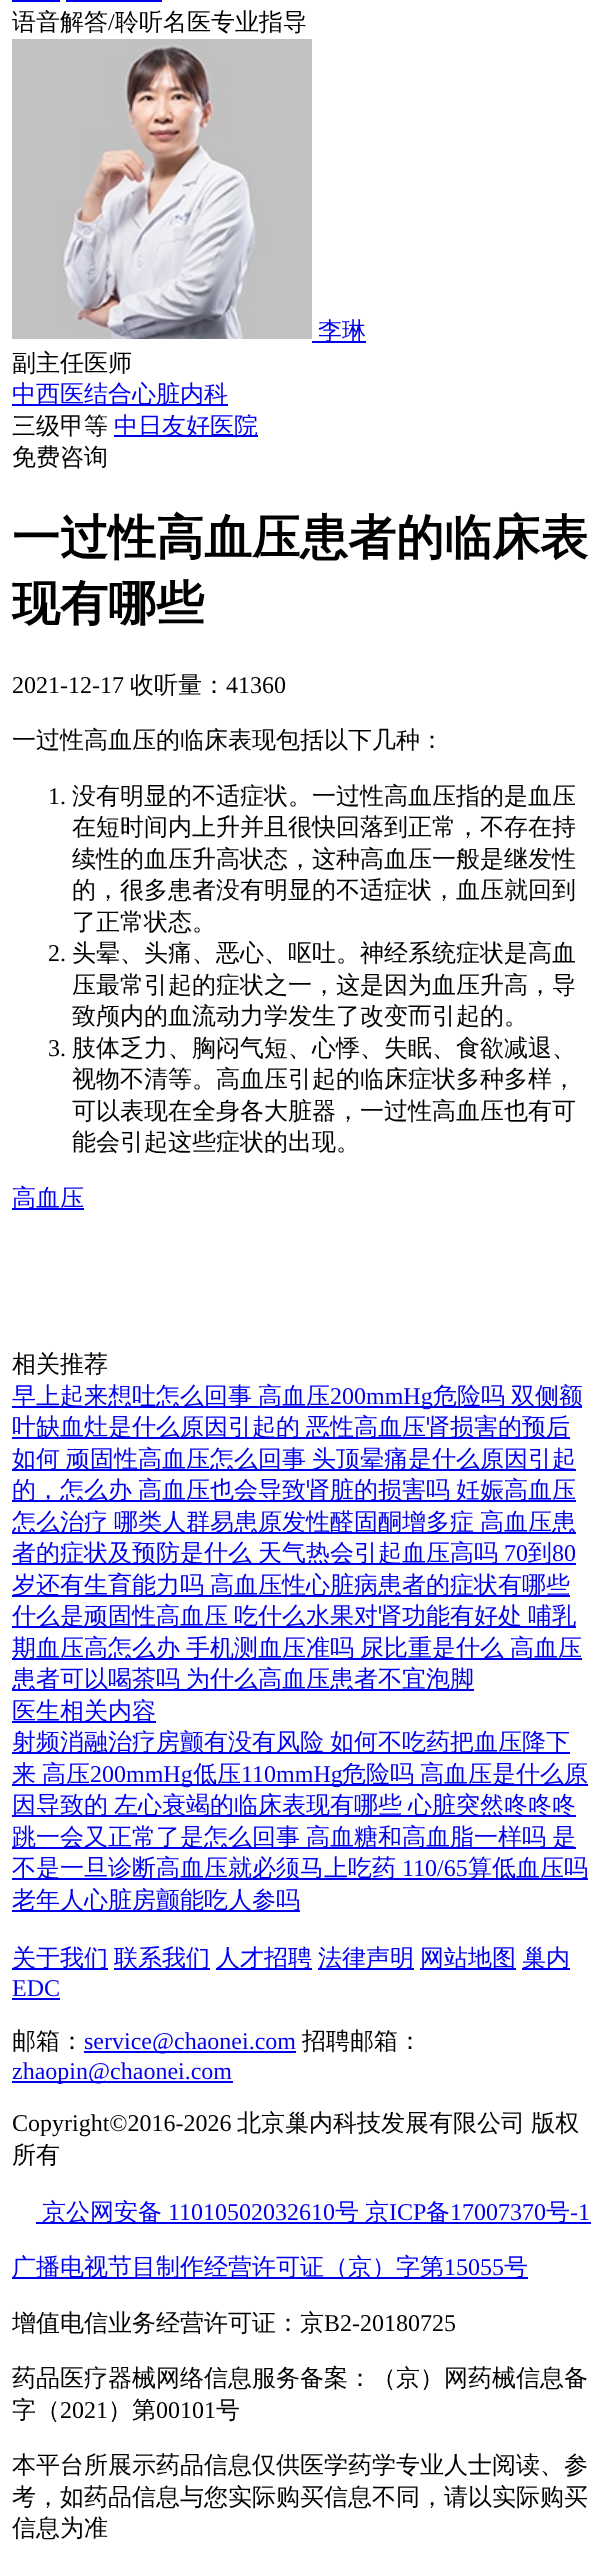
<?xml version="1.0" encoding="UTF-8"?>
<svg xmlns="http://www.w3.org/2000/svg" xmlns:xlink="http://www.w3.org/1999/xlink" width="602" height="2576">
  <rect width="100%" height="100%" fill="#ffffff" />
  <rect x="12" width="48" height="2" fill="#0000ee" />
  <rect x="66" width="96" height="2" fill="#0000ee" />
  <image x="12" y="39" width="300" height="300" xlink:href="image1.png" />
  <rect x="312" y="341" width="54" height="2" fill="#0000ee" />
  <rect x="12" y="404" width="216" height="2" fill="#0000ee" />
  <rect x="114" y="435" width="144" height="2" fill="#0000ee" />
  <rect x="12" y="1208" width="72" height="2" fill="#0000ee" />
  <rect x="12" y="1406" width="570" height="2" fill="#0000ee" />
  <rect x="12" y="1437" width="558" height="2" fill="#0000ee" />
  <rect x="12" y="1469" width="564" height="2" fill="#0000ee" />
  <rect x="12" y="1500" width="564" height="2" fill="#0000ee" />
  <rect x="12" y="1532" width="564" height="2" fill="#0000ee" />
  <rect x="12" y="1563" width="564" height="2" fill="#0000ee" />
  <rect x="12" y="1595" width="558" height="2" fill="#0000ee" />
  <rect x="12" y="1626" width="564" height="2" fill="#0000ee" />
  <rect x="12" y="1658" width="570" height="2" fill="#0000ee" />
  <rect x="12" y="1689" width="462" height="2" fill="#0000ee" />
  <rect x="12" y="1721" width="144" height="2" fill="#0000ee" />
  <rect x="12" y="1752" width="558" height="2" fill="#0000ee" />
  <rect x="12" y="1784" width="576" height="2" fill="#0000ee" />
  <rect x="12" y="1815" width="564" height="2" fill="#0000ee" />
  <rect x="12" y="1847" width="564" height="2" fill="#0000ee" />
  <rect x="12" y="1878" width="576" height="2" fill="#0000ee" />
  <rect x="12" y="1910" width="288" height="2" fill="#0000ee" />
  <rect x="12" y="1968" width="96" height="2" fill="#0000ee" />
  <rect x="114" y="1968" width="96" height="2" fill="#0000ee" />
  <rect x="216" y="1968" width="96" height="2" fill="#0000ee" />
  <rect x="318" y="1968" width="96" height="2" fill="#0000ee" />
  <rect x="420" y="1968" width="96" height="2" fill="#0000ee" />
  <rect x="522" y="1968" width="48" height="2" fill="#0000ee" />
  <rect x="12" y="1998" width="48" height="2" fill="#0000ee" />
  <rect x="84" y="2051" width="212" height="2" fill="#0000ee" />
  <rect x="12" y="2081" width="221" height="2" fill="#0000ee" />
  <rect x="36" y="2222" width="555" height="2" fill="#0000ee" />
  <rect x="12" y="2277" width="516" height="2" fill="#0000ee" />
  <text x="12" y="30" style="font-family: WenQuanYi Zen Hei; font-size: 24px; font-weight: 500; fill: #000000">语音解答</text>
  <text x="108" y="30" style="font-family: Liberation Serif; font-size: 24px; fill: #000000">/</text>
  <text x="115" y="30" style="font-family: WenQuanYi Zen Hei; font-size: 24px; font-weight: 500; fill: #000000">聆听名医专业指导</text>
  <text x="318" y="339" style="font-family: WenQuanYi Zen Hei; font-size: 24px; font-weight: 500; fill: #0000ee">李琳</text>
  <text x="12" y="371" style="font-family: WenQuanYi Zen Hei; font-size: 24px; font-weight: 500; fill: #000000">副主任医师</text>
  <text x="12" y="402" style="font-family: WenQuanYi Zen Hei; font-size: 24px; font-weight: 500; fill: #0000ee">中西医结合心脏内科</text>
  <text x="12" y="434" style="font-family: WenQuanYi Zen Hei; font-size: 24px; font-weight: 500; fill: #000000">三级甲等</text>
  <text x="114" y="434" style="font-family: WenQuanYi Zen Hei; font-size: 24px; font-weight: 500; fill: #0000ee">中日友好医院</text>
  <text x="12" y="465" style="font-family: WenQuanYi Zen Hei; font-size: 24px; font-weight: 500; fill: #000000">免费咨询</text>
  <text x="12" y="554" style="font-family: WenQuanYi Zen Hei; font-size: 48px; font-weight: bold; fill: #000000">一过性高血压患者的临床表</text>
  <text x="12" y="620" style="font-family: WenQuanYi Zen Hei; font-size: 48px; font-weight: bold; fill: #000000">现有哪些</text>
  <text x="12" y="693" style="font-family: Liberation Serif; font-size: 24px; fill: #000000">2021-12-17</text>
  <text x="130" y="693" style="font-family: WenQuanYi Zen Hei; font-size: 24px; font-weight: 500; fill: #000000">收听量：</text>
  <text x="226" y="693" style="font-family: Liberation Serif; font-size: 24px; fill: #000000">41360</text>
  <text x="12" y="748" style="font-family: WenQuanYi Zen Hei; font-size: 24px; font-weight: 500; fill: #000000">一过性高血压的临床表现包括以下几种：</text>
  <text x="48" y="804" style="font-family: Liberation Serif; font-size: 24px; fill: #000000">1.</text>
  <text x="72" y="804" style="font-family: WenQuanYi Zen Hei; font-size: 24px; font-weight: 500; fill: #000000">没有明显的不适症状。一过性高血压指的是血压</text>
  <text x="72" y="835" style="font-family: WenQuanYi Zen Hei; font-size: 24px; font-weight: 500; fill: #000000">在短时间内上升并且很快回落到正常，不存在持</text>
  <text x="72" y="867" style="font-family: WenQuanYi Zen Hei; font-size: 24px; font-weight: 500; fill: #000000">续性的血压升高状态，这种高血压一般是继发性</text>
  <text x="72" y="898" style="font-family: WenQuanYi Zen Hei; font-size: 24px; font-weight: 500; fill: #000000">的，很多患者没有明显的不适症状，血压就回到</text>
  <text x="72" y="930" style="font-family: WenQuanYi Zen Hei; font-size: 24px; font-weight: 500; fill: #000000">了正常状态。</text>
  <text x="48" y="961" style="font-family: Liberation Serif; font-size: 24px; fill: #000000">2.</text>
  <text x="72" y="961" style="font-family: WenQuanYi Zen Hei; font-size: 24px; font-weight: 500; fill: #000000">头晕、头痛、恶心、呕吐。神经系统症状是高血</text>
  <text x="72" y="993" style="font-family: WenQuanYi Zen Hei; font-size: 24px; font-weight: 500; fill: #000000">压最常引起的症状之一，这是因为血压升高，导</text>
  <text x="72" y="1024" style="font-family: WenQuanYi Zen Hei; font-size: 24px; font-weight: 500; fill: #000000">致颅内的血流动力学发生了改变而引起的。</text>
  <text x="48" y="1056" style="font-family: Liberation Serif; font-size: 24px; fill: #000000">3.</text>
  <text x="72" y="1056" style="font-family: WenQuanYi Zen Hei; font-size: 24px; font-weight: 500; fill: #000000">肢体乏力、胸闷气短、心悸、失眠、食欲减退、</text>
  <text x="72" y="1087" style="font-family: WenQuanYi Zen Hei; font-size: 24px; font-weight: 500; fill: #000000">视物不清等。高血压引起的临床症状多种多样，</text>
  <text x="72" y="1119" style="font-family: WenQuanYi Zen Hei; font-size: 24px; font-weight: 500; fill: #000000">可以表现在全身各大脏器，一过性高血压也有可</text>
  <text x="72" y="1150" style="font-family: WenQuanYi Zen Hei; font-size: 24px; font-weight: 500; fill: #000000">能会引起这些症状的出现。</text>
  <text x="12" y="1206" style="font-family: WenQuanYi Zen Hei; font-size: 24px; font-weight: 500; fill: #0000ee">高血压</text>
  <text x="12" y="1372" style="font-family: WenQuanYi Zen Hei; font-size: 24px; font-weight: 500; fill: #000000">相关推荐</text>
  <text x="12" y="1404" style="font-family: WenQuanYi Zen Hei; font-size: 24px; font-weight: 500; fill: #0000ee">早上起来想吐怎么回事</text>
  <text x="258" y="1404" style="font-family: WenQuanYi Zen Hei; font-size: 24px; font-weight: 500; fill: #0000ee">高血压</text>
  <text x="330" y="1404" style="font-family: Liberation Serif; font-size: 24px; fill: #0000ee">200mmHg</text>
  <text x="433" y="1404" style="font-family: WenQuanYi Zen Hei; font-size: 24px; font-weight: 500; fill: #0000ee">危险吗</text>
  <text x="511" y="1404" style="font-family: WenQuanYi Zen Hei; font-size: 24px; font-weight: 500; fill: #0000ee">双侧额</text>
  <text x="12" y="1435" style="font-family: WenQuanYi Zen Hei; font-size: 24px; font-weight: 500; fill: #0000ee">叶缺血灶是什么原因引起的</text>
  <text x="306" y="1435" style="font-family: WenQuanYi Zen Hei; font-size: 24px; font-weight: 500; fill: #0000ee">恶性高血压肾损害的预后</text>
  <text x="12" y="1467" style="font-family: WenQuanYi Zen Hei; font-size: 24px; font-weight: 500; fill: #0000ee">如何</text>
  <text x="66" y="1467" style="font-family: WenQuanYi Zen Hei; font-size: 24px; font-weight: 500; fill: #0000ee">顽固性高血压怎么回事</text>
  <text x="312" y="1467" style="font-family: WenQuanYi Zen Hei; font-size: 24px; font-weight: 500; fill: #0000ee">头顶晕痛是什么原因引起</text>
  <text x="12" y="1498" style="font-family: WenQuanYi Zen Hei; font-size: 24px; font-weight: 500; fill: #0000ee">的，怎么办</text>
  <text x="138" y="1498" style="font-family: WenQuanYi Zen Hei; font-size: 24px; font-weight: 500; fill: #0000ee">高血压也会导致肾脏的损害吗</text>
  <text x="456" y="1498" style="font-family: WenQuanYi Zen Hei; font-size: 24px; font-weight: 500; fill: #0000ee">妊娠高血压</text>
  <text x="12" y="1530" style="font-family: WenQuanYi Zen Hei; font-size: 24px; font-weight: 500; fill: #0000ee">怎么治疗</text>
  <text x="114" y="1530" style="font-family: WenQuanYi Zen Hei; font-size: 24px; font-weight: 500; fill: #0000ee">哪类人群易患原发性醛固酮增多症</text>
  <text x="480" y="1530" style="font-family: WenQuanYi Zen Hei; font-size: 24px; font-weight: 500; fill: #0000ee">高血压患</text>
  <text x="12" y="1561" style="font-family: WenQuanYi Zen Hei; font-size: 24px; font-weight: 500; fill: #0000ee">者的症状及预防是什么</text>
  <text x="258" y="1561" style="font-family: WenQuanYi Zen Hei; font-size: 24px; font-weight: 500; fill: #0000ee">天气热会引起血压高吗</text>
  <text x="504" y="1561" style="font-family: Liberation Serif; font-size: 24px; fill: #0000ee">70</text>
  <text x="528" y="1561" style="font-family: WenQuanYi Zen Hei; font-size: 24px; font-weight: 500; fill: #0000ee">到</text>
  <text x="552" y="1561" style="font-family: Liberation Serif; font-size: 24px; fill: #0000ee">80</text>
  <text x="12" y="1593" style="font-family: WenQuanYi Zen Hei; font-size: 24px; font-weight: 500; fill: #0000ee">岁还有生育能力吗</text>
  <text x="210" y="1593" style="font-family: WenQuanYi Zen Hei; font-size: 24px; font-weight: 500; fill: #0000ee">高血压性心脏病患者的症状有哪些</text>
  <text x="12" y="1624" style="font-family: WenQuanYi Zen Hei; font-size: 24px; font-weight: 500; fill: #0000ee">什么是顽固性高血压</text>
  <text x="234" y="1624" style="font-family: WenQuanYi Zen Hei; font-size: 24px; font-weight: 500; fill: #0000ee">吃什么水果对肾功能有好处</text>
  <text x="528" y="1624" style="font-family: WenQuanYi Zen Hei; font-size: 24px; font-weight: 500; fill: #0000ee">哺乳</text>
  <text x="12" y="1656" style="font-family: WenQuanYi Zen Hei; font-size: 24px; font-weight: 500; fill: #0000ee">期血压高怎么办</text>
  <text x="186" y="1656" style="font-family: WenQuanYi Zen Hei; font-size: 24px; font-weight: 500; fill: #0000ee">手机测血压准吗</text>
  <text x="360" y="1656" style="font-family: WenQuanYi Zen Hei; font-size: 24px; font-weight: 500; fill: #0000ee">尿比重是什么</text>
  <text x="510" y="1656" style="font-family: WenQuanYi Zen Hei; font-size: 24px; font-weight: 500; fill: #0000ee">高血压</text>
  <text x="12" y="1687" style="font-family: WenQuanYi Zen Hei; font-size: 24px; font-weight: 500; fill: #0000ee">患者可以喝茶吗</text>
  <text x="186" y="1687" style="font-family: WenQuanYi Zen Hei; font-size: 24px; font-weight: 500; fill: #0000ee">为什么高血压患者不宜泡脚</text>
  <text x="12" y="1719" style="font-family: WenQuanYi Zen Hei; font-size: 24px; font-weight: 500; fill: #0000ee">医生相关内容</text>
  <text x="12" y="1750" style="font-family: WenQuanYi Zen Hei; font-size: 24px; font-weight: 500; fill: #0000ee">射频消融治疗房颤有没有风险</text>
  <text x="330" y="1750" style="font-family: WenQuanYi Zen Hei; font-size: 24px; font-weight: 500; fill: #0000ee">如何不吃药把血压降下</text>
  <text x="12" y="1782" style="font-family: WenQuanYi Zen Hei; font-size: 24px; font-weight: 500; fill: #0000ee">来</text>
  <text x="42" y="1782" style="font-family: WenQuanYi Zen Hei; font-size: 24px; font-weight: 500; fill: #0000ee">高压</text>
  <text x="90" y="1782" style="font-family: Liberation Serif; font-size: 24px; fill: #0000ee">200mmHg</text>
  <text x="193" y="1782" style="font-family: WenQuanYi Zen Hei; font-size: 24px; font-weight: 500; fill: #0000ee">低压</text>
  <text x="241" y="1782" style="font-family: Liberation Serif; font-size: 24px; fill: #0000ee">110mmHg</text>
  <text x="342" y="1782" style="font-family: WenQuanYi Zen Hei; font-size: 24px; font-weight: 500; fill: #0000ee">危险吗</text>
  <text x="420" y="1782" style="font-family: WenQuanYi Zen Hei; font-size: 24px; font-weight: 500; fill: #0000ee">高血压是什么原</text>
  <text x="12" y="1813" style="font-family: WenQuanYi Zen Hei; font-size: 24px; font-weight: 500; fill: #0000ee">因导致的</text>
  <text x="114" y="1813" style="font-family: WenQuanYi Zen Hei; font-size: 24px; font-weight: 500; fill: #0000ee">左心衰竭的临床表现有哪些</text>
  <text x="408" y="1813" style="font-family: WenQuanYi Zen Hei; font-size: 24px; font-weight: 500; fill: #0000ee">心脏突然咚咚咚</text>
  <text x="12" y="1845" style="font-family: WenQuanYi Zen Hei; font-size: 24px; font-weight: 500; fill: #0000ee">跳一会又正常了是怎么回事</text>
  <text x="306" y="1845" style="font-family: WenQuanYi Zen Hei; font-size: 24px; font-weight: 500; fill: #0000ee">高血糖和高血脂一样吗</text>
  <text x="552" y="1845" style="font-family: WenQuanYi Zen Hei; font-size: 24px; font-weight: 500; fill: #0000ee">是</text>
  <text x="12" y="1876" style="font-family: WenQuanYi Zen Hei; font-size: 24px; font-weight: 500; fill: #0000ee">不是一旦诊断高血压就必须马上吃药</text>
  <text x="402" y="1876" style="font-family: Liberation Serif; font-size: 24px; fill: #0000ee">110/65</text>
  <text x="468" y="1876" style="font-family: WenQuanYi Zen Hei; font-size: 24px; font-weight: 500; fill: #0000ee">算低血压吗</text>
  <text x="12" y="1908" style="font-family: WenQuanYi Zen Hei; font-size: 24px; font-weight: 500; fill: #0000ee">老年人心脏房颤能吃人参吗</text>
  <text x="12" y="1966" style="font-family: WenQuanYi Zen Hei; font-size: 24px; font-weight: 500; fill: #0000ee">关于我们</text>
  <text x="114" y="1966" style="font-family: WenQuanYi Zen Hei; font-size: 24px; font-weight: 500; fill: #0000ee">联系我们</text>
  <text x="216" y="1966" style="font-family: WenQuanYi Zen Hei; font-size: 24px; font-weight: 500; fill: #0000ee">人才招聘</text>
  <text x="318" y="1966" style="font-family: WenQuanYi Zen Hei; font-size: 24px; font-weight: 500; fill: #0000ee">法律声明</text>
  <text x="420" y="1966" style="font-family: WenQuanYi Zen Hei; font-size: 24px; font-weight: 500; fill: #0000ee">网站地图</text>
  <text x="522" y="1966" style="font-family: WenQuanYi Zen Hei; font-size: 24px; font-weight: 500; fill: #0000ee">巢内</text>
  <text x="12" y="1996" style="font-family: Liberation Serif; font-size: 24px; fill: #0000ee">EDC</text>
  <text x="12" y="2049" style="font-family: WenQuanYi Zen Hei; font-size: 24px; font-weight: 500; fill: #000000">邮箱：</text>
  <text x="84" y="2049" style="font-family: Liberation Serif; font-size: 24px; fill: #0000ee">service@chaonei.com</text>
  <text x="302" y="2049" style="font-family: WenQuanYi Zen Hei; font-size: 24px; font-weight: 500; fill: #000000">招聘邮箱：</text>
  <text x="12" y="2079" style="font-family: Liberation Serif; font-size: 24px; fill: #0000ee">zhaopin@chaonei.com</text>
  <text x="12" y="2131" style="font-family: Liberation Serif; font-size: 24px; fill: #000000">Copyright©2016-2026</text>
  <text x="237" y="2131" word-spacing="-1" style="font-family: WenQuanYi Zen Hei; font-size: 24px; font-weight: 500; fill: #000000">北京巢内科技发展有限公司 版权</text>
  <text x="12" y="2163" style="font-family: WenQuanYi Zen Hei; font-size: 24px; font-weight: 500; fill: #000000">所有</text>
  <text x="42" y="2220" style="font-family: WenQuanYi Zen Hei; font-size: 24px; font-weight: 500; fill: #0000ee">京公网安备</text>
  <text x="168" y="2220" style="font-family: Liberation Serif; font-size: 24px; fill: #0000ee">11010502032610</text>
  <text x="335" y="2220" style="font-family: WenQuanYi Zen Hei; font-size: 24px; font-weight: 500; fill: #0000ee">号</text>
  <text x="365" y="2220" style="font-family: WenQuanYi Zen Hei; font-size: 24px; font-weight: 500; fill: #0000ee">京</text>
  <text x="389" y="2220" style="font-family: Liberation Serif; font-size: 24px; fill: #0000ee">ICP</text>
  <text x="426" y="2220" style="font-family: WenQuanYi Zen Hei; font-size: 24px; font-weight: 500; fill: #0000ee">备</text>
  <text x="450" y="2220" style="font-family: Liberation Serif; font-size: 24px; fill: #0000ee">17007370</text>
  <text x="546" y="2220" style="font-family: WenQuanYi Zen Hei; font-size: 24px; font-weight: 500; fill: #0000ee">号</text>
  <text x="570" y="2220" style="font-family: Liberation Serif; font-size: 24px; fill: #0000ee">-1</text>
  <text x="12" y="2275" style="font-family: WenQuanYi Zen Hei; font-size: 24px; font-weight: 500; fill: #0000ee">广播电视节目制作经营许可证（京）字第</text>
  <text x="444" y="2275" style="font-family: Liberation Serif; font-size: 24px; fill: #0000ee">15055</text>
  <text x="504" y="2275" style="font-family: WenQuanYi Zen Hei; font-size: 24px; font-weight: 500; fill: #0000ee">号</text>
  <text x="12" y="2331" style="font-family: WenQuanYi Zen Hei; font-size: 24px; font-weight: 500; fill: #000000">增值电信业务经营许可证：京</text>
  <text x="324" y="2331" style="font-family: Liberation Serif; font-size: 24px; fill: #000000">B2-20180725</text>
  <text x="12" y="2386" style="font-family: WenQuanYi Zen Hei; font-size: 24px; font-weight: 500; fill: #000000">药品医疗器械网络信息服务备案：（京）网药械信息备</text>
  <text x="12" y="2418" style="font-family: WenQuanYi Zen Hei; font-size: 24px; font-weight: 500; fill: #000000">字（</text>
  <text x="60" y="2418" style="font-family: Liberation Serif; font-size: 24px; fill: #000000">2021</text>
  <text x="108" y="2418" style="font-family: WenQuanYi Zen Hei; font-size: 24px; font-weight: 500; fill: #000000">）第</text>
  <text x="156" y="2418" style="font-family: Liberation Serif; font-size: 24px; fill: #000000">00101</text>
  <text x="216" y="2418" style="font-family: WenQuanYi Zen Hei; font-size: 24px; font-weight: 500; fill: #000000">号</text>
  <text x="12" y="2473" style="font-family: WenQuanYi Zen Hei; font-size: 24px; font-weight: 500; fill: #000000">本平台所展示药品信息仅供医学药学专业人士阅读、参</text>
  <text x="12" y="2505" style="font-family: WenQuanYi Zen Hei; font-size: 24px; font-weight: 500; fill: #000000">考，如药品信息与您实际购买信息不同，请以实际购买</text>
  <text x="12" y="2536" style="font-family: WenQuanYi Zen Hei; font-size: 24px; font-weight: 500; fill: #000000">信息为准</text>
</svg>
